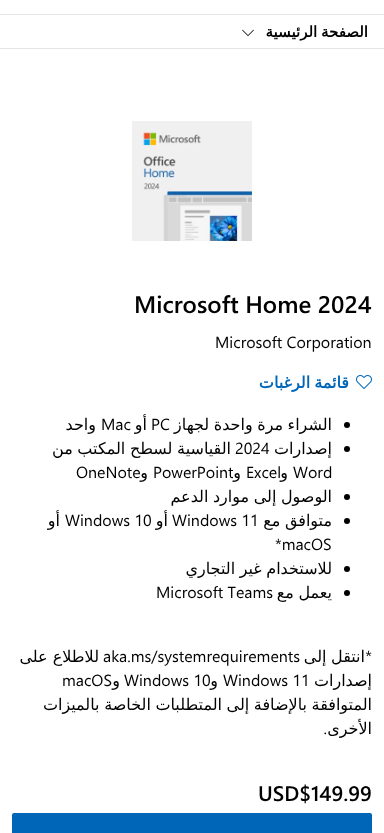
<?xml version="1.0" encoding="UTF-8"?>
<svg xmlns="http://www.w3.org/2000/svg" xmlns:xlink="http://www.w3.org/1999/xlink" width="384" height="833">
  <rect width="100%" height="100%" fill="#ffffff" />
  <rect y="14" width="384" height="1" fill="#e6e6e6" />
  <rect y="48" width="384" height="1" fill="#e6e6e6" />
  <image x="242" y="29" width="12" height="7" xlink:href="image1.png" />
  <image x="132" y="121" width="120" height="120" xlink:href="image2.png" />
  <image x="356" y="375" width="16" height="14" xlink:href="image3.png" />
  <circle cx="347" cy="425" r="3" fill="#000000" />
  <circle cx="347" cy="449" r="3" fill="#000000" />
  <circle cx="347" cy="497" r="3" fill="#000000" />
  <circle cx="347" cy="521" r="3" fill="#000000" />
  <circle cx="347" cy="569" r="3" fill="#000000" />
  <circle cx="347" cy="593" r="3" fill="#000000" />
  <rect x="12" y="813" width="360" height="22" rx="2" fill="#0067b8" />
  <text x="368" y="37" word-spacing="-1" style="font-family: DejaVu Sans; font-size: 15px; font-weight: bold; direction: rtl; fill: #000000">الصفحة الرئيسية</text>
  <text x="134" y="313" style="font-family: Segoe UI; font-size: 24px; font-weight: 600; fill: #000000">Microsoft Home 2024</text>
  <text x="215" y="348" style="font-family: Segoe UI; font-size: 16px; fill: #000000">Microsoft Corporation</text>
  <text x="349" y="388" word-spacing="-1" style="font-family: DejaVu Sans; font-size: 16px; font-weight: bold; direction: rtl; fill: #0067b8">قائمة الرغبات</text>
  <text x="332" y="430" word-spacing="-0.5" style="font-family: DejaVu Sans; font-size: 16px; direction: rtl; fill: #000000">الشراء مرة واحدة لجهاز</text>
  <text x="151" y="430" style="font-family: Segoe UI; font-size: 16px; fill: #000000">PC</text>
  <text x="147" y="430" style="font-family: DejaVu Sans; font-size: 16px; direction: rtl; fill: #000000">أو</text>
  <text x="101" y="430" style="font-family: Segoe UI; font-size: 16px; fill: #000000">Mac</text>
  <text x="96" y="430" style="font-family: DejaVu Sans; font-size: 16px; direction: rtl; fill: #000000">واحد</text>
  <text x="332" y="454" style="font-family: DejaVu Sans; font-size: 16px; direction: rtl; fill: #000000">إصدارات</text>
  <text x="235" y="454" style="font-family: Segoe UI; font-size: 16px; fill: #000000">2024</text>
  <text x="231" y="454" word-spacing="-0.5" style="font-family: DejaVu Sans; font-size: 16px; direction: rtl; fill: #000000">القياسية لسطح المكتب من</text>
  <text x="293" y="478" style="font-family: Segoe UI; font-size: 16px; fill: #000000">Word</text>
  <text x="246" y="478" style="font-family: Segoe UI; font-size: 16px; fill: #000000">Excel</text>
  <text x="288" y="478" style="font-family: DejaVu Sans; font-size: 16px; direction: rtl; fill: #000000">و</text>
  <text x="153" y="478" style="font-family: Segoe UI; font-size: 16px; fill: #000000">PowerPoint</text>
  <text x="241" y="478" style="font-family: DejaVu Sans; font-size: 16px; direction: rtl; fill: #000000">و</text>
  <text x="76" y="478" style="font-family: Segoe UI; font-size: 16px; fill: #000000">OneNote</text>
  <text x="148" y="478" style="font-family: DejaVu Sans; font-size: 16px; direction: rtl; fill: #000000">و</text>
  <text x="332" y="502" word-spacing="-0.5" style="font-family: DejaVu Sans; font-size: 16px; direction: rtl; fill: #000000">الوصول إلى موارد الدعم</text>
  <text x="332" y="526" word-spacing="-0.5" style="font-family: DejaVu Sans; font-size: 16px; direction: rtl; fill: #000000">متوافق مع</text>
  <text x="172" y="526" style="font-family: Segoe UI; font-size: 16px; fill: #000000">Windows 11</text>
  <text x="168" y="526" style="font-family: DejaVu Sans; font-size: 16px; direction: rtl; fill: #000000">أو</text>
  <text x="65" y="526" style="font-family: Segoe UI; font-size: 16px; fill: #000000">Windows 10</text>
  <text x="60" y="526" style="font-family: DejaVu Sans; font-size: 16px; direction: rtl; fill: #000000">أو</text>
  <text x="275" y="550" style="font-family: Segoe UI; font-size: 16px; fill: #000000">*macOS</text>
  <text x="332" y="574" word-spacing="-0.5" style="font-family: DejaVu Sans; font-size: 16px; direction: rtl; fill: #000000">للاستخدام غير التجاري</text>
  <text x="332" y="598" word-spacing="-0.5" style="font-family: DejaVu Sans; font-size: 16px; direction: rtl; fill: #000000">يعمل مع</text>
  <text x="156" y="598" style="font-family: Segoe UI; font-size: 16px; fill: #000000">Microsoft Teams</text>
  <text x="372" y="662" style="font-family: Segoe UI; font-size: 16px; direction: rtl; fill: #000000">*</text>
  <text x="365" y="662" word-spacing="-0.5" style="font-family: DejaVu Sans; font-size: 16px; direction: rtl; fill: #000000">انتقل إلى</text>
  <text x="103" y="662" style="font-family: Segoe UI; font-size: 16px; fill: #000000">aka.ms/systemrequirements</text>
  <text x="99" y="662" style="font-family: DejaVu Sans; font-size: 16px; direction: rtl; fill: #000000">للاطلاع على</text>
  <text x="372" y="686" style="font-family: DejaVu Sans; font-size: 16px; direction: rtl; fill: #000000">إصدارات</text>
  <text x="223" y="686" style="font-family: Segoe UI; font-size: 16px; fill: #000000">Windows 11</text>
  <text x="124" y="686" style="font-family: Segoe UI; font-size: 16px; fill: #000000">Windows 10</text>
  <text x="218" y="686" style="font-family: DejaVu Sans; font-size: 16px; direction: rtl; fill: #000000">و</text>
  <text x="62" y="686" style="font-family: Segoe UI; font-size: 16px; fill: #000000">macOS</text>
  <text x="120" y="686" style="font-family: DejaVu Sans; font-size: 16px; direction: rtl; fill: #000000">و</text>
  <text x="372" y="710" word-spacing="-0.5" style="font-family: DejaVu Sans; font-size: 16px; direction: rtl; fill: #000000">المتوافقة بالإضافة إلى المتطلبات الخاصة بالميزات</text>
  <text x="372" y="734" style="font-family: DejaVu Sans; font-size: 16px; direction: rtl; fill: #000000">الأخرى</text>
  <text x="327" y="734" style="font-family: Segoe UI; font-size: 16px; direction: rtl; fill: #000000">.</text>
  <text x="258" y="801" style="font-family: Segoe UI; font-size: 21px; font-weight: 600; fill: #000000">USD$149.99</text>
</svg>
